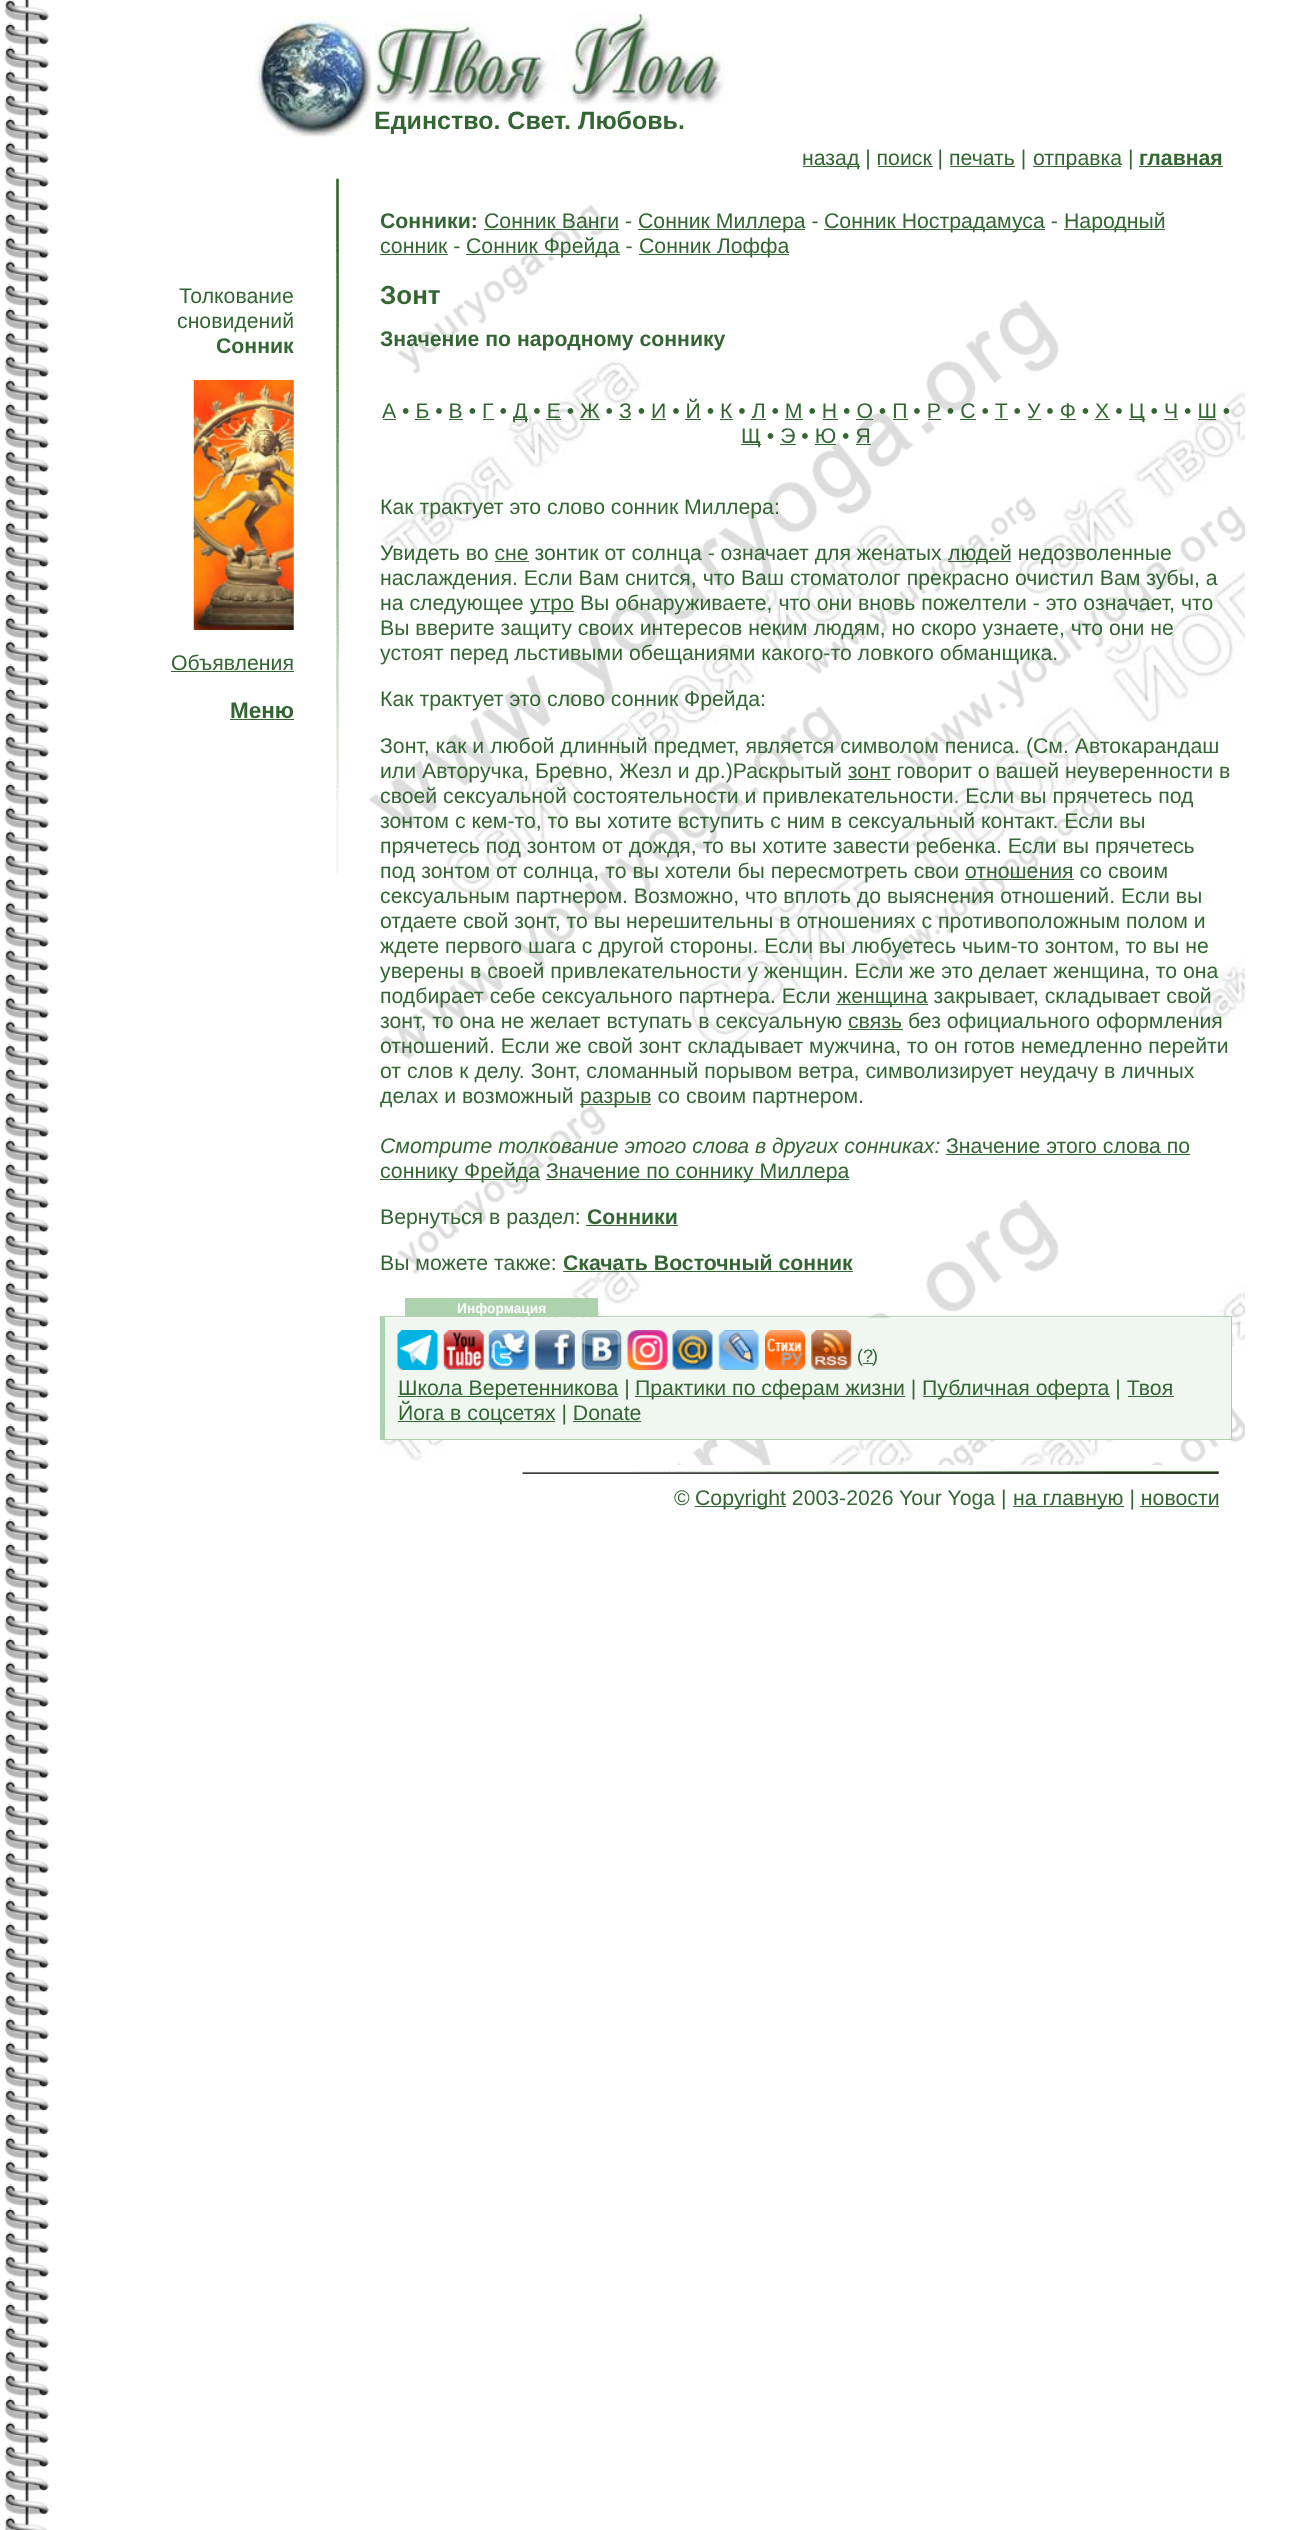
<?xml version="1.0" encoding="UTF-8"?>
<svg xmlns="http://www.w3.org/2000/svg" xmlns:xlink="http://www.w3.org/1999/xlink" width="1292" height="2530">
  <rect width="100%" height="100%" fill="#ffffff" />
  <image x="4" y="0" width="45" height="2530" xlink:href="image1.png" />
  <image x="255" y="16" width="117" height="121" xlink:href="image2.png" />
  <image x="375" y="12" width="350" height="93" xlink:href="image3.png" />
  <rect x="803" y="166" width="57" height="1" fill="#336633" />
  <rect x="1033" y="166" width="88" height="1" fill="#336633" />
  <rect x="1139" y="166" width="84" height="1" fill="#336633" />
  <rect x="878" y="166" width="55" height="1" fill="#336633" />
  <rect x="950" y="166" width="65" height="1" fill="#336633" />
  <image x="193" y="380" width="101" height="250" xlink:href="image4.png" />
  <rect x="171" y="671" width="123" height="1" fill="#336633" />
  <rect x="230" y="719" width="64" height="1" fill="#336633" />
  <image x="336" y="178" width="3" height="697" xlink:href="image5.png" />
  <image x="368" y="205" width="877" height="1260" xlink:href="image6.png" />
  <rect x="484" y="229" width="135" height="1" fill="#336633" />
  <rect x="638" y="229" width="167" height="1" fill="#336633" />
  <rect x="824" y="229" width="221" height="1" fill="#336633" />
  <rect x="1064" y="229" width="101" height="1" fill="#336633" />
  <rect x="380" y="254" width="68" height="1" fill="#336633" />
  <rect x="466" y="254" width="154" height="1" fill="#336633" />
  <rect x="639" y="254" width="150" height="1" fill="#336633" />
  <rect x="383" y="419" width="13" height="1" fill="#336633" />
  <rect x="513" y="419" width="15" height="1" fill="#336633" />
  <rect x="1129" y="419" width="16" height="1" fill="#336633" />
  <rect x="415" y="419" width="15" height="1" fill="#336633" />
  <rect x="449" y="419" width="14" height="1" fill="#336633" />
  <rect x="483" y="419" width="11" height="1" fill="#336633" />
  <rect x="546" y="419" width="15" height="1" fill="#336633" />
  <rect x="580" y="419" width="20" height="1" fill="#336633" />
  <rect x="619" y="419" width="12" height="1" fill="#336633" />
  <rect x="651" y="419" width="15" height="1" fill="#336633" />
  <rect x="685" y="419" width="16" height="1" fill="#336633" />
  <rect x="720" y="419" width="13" height="1" fill="#336633" />
  <rect x="751" y="419" width="15" height="1" fill="#336633" />
  <rect x="785" y="419" width="18" height="1" fill="#336633" />
  <rect x="823" y="419" width="15" height="1" fill="#336633" />
  <rect x="856" y="419" width="17" height="1" fill="#336633" />
  <rect x="893" y="419" width="15" height="1" fill="#336633" />
  <rect x="928" y="419" width="13" height="1" fill="#336633" />
  <rect x="960" y="419" width="16" height="1" fill="#336633" />
  <rect x="995" y="419" width="13" height="1" fill="#336633" />
  <rect x="1028" y="419" width="13" height="1" fill="#336633" />
  <rect x="1060" y="419" width="16" height="1" fill="#336633" />
  <rect x="1095" y="419" width="15" height="1" fill="#336633" />
  <rect x="1164" y="419" width="14" height="1" fill="#336633" />
  <rect x="1198" y="419" width="18" height="1" fill="#336633" />
  <rect x="741" y="444" width="20" height="1" fill="#336633" />
  <rect x="780" y="444" width="16" height="1" fill="#336633" />
  <rect x="815" y="444" width="21" height="1" fill="#336633" />
  <rect x="856" y="444" width="15" height="1" fill="#336633" />
  <rect x="948" y="561" width="63" height="1" fill="#336633" />
  <rect x="495" y="561" width="34" height="1" fill="#336633" />
  <rect x="530" y="611" width="44" height="1" fill="#336633" />
  <rect x="848" y="779" width="43" height="1" fill="#336633" />
  <rect x="965" y="879" width="109" height="1" fill="#336633" />
  <rect x="836" y="1004" width="92" height="1" fill="#336633" />
  <rect x="848" y="1029" width="55" height="1" fill="#336633" />
  <rect x="580" y="1104" width="71" height="1" fill="#336633" />
  <rect x="946" y="1154" width="244" height="1" fill="#336633" />
  <rect x="380" y="1179" width="160" height="1" fill="#336633" />
  <rect x="546" y="1179" width="303" height="1" fill="#336633" />
  <rect x="586" y="1225" width="92" height="1" fill="#336633" />
  <rect x="563" y="1271" width="290" height="1" fill="#336633" />
  <rect x="405" y="1298" width="193" height="18" fill="#aed2ae" />
  <rect x="385" y="1318" width="846" height="121" fill="#f0f7f0" />
  <rect x="380" y="1316" width="853" height="1" fill="#aed2ae" />
  <rect x="1231" y="1316" width="1" height="124" fill="#aed2ae" />
  <rect x="380" y="1439" width="853" height="1" fill="#aed2ae" />
  <rect x="380" y="1316" width="5" height="124" fill="#aed2ae" />
  <image x="397" y="1330" width="41" height="40" xlink:href="image7.png" />
  <image x="443" y="1330" width="41" height="40" xlink:href="image8.png" />
  <image x="488" y="1330" width="41" height="40" xlink:href="image9.png" />
  <image x="535" y="1330" width="40" height="40" xlink:href="image10.png" />
  <image x="581" y="1330" width="41" height="40" xlink:href="image11.png" />
  <image x="627" y="1330" width="41" height="40" xlink:href="image12.png" />
  <image x="672" y="1330" width="41" height="40" xlink:href="image13.png" />
  <image x="718" y="1330" width="41" height="40" xlink:href="image14.png" />
  <image x="765" y="1330" width="40" height="40" xlink:href="image15.png" />
  <image x="811" y="1330" width="41" height="40" xlink:href="image16.png" />
  <rect x="863" y="1363" width="10" height="1" fill="#336633" />
  <rect x="398" y="1396" width="220" height="1" fill="#336633" />
  <rect x="635" y="1396" width="270" height="1" fill="#336633" />
  <rect x="923" y="1396" width="187" height="1" fill="#336633" />
  <rect x="1128" y="1396" width="46" height="1" fill="#336633" />
  <rect x="398" y="1421" width="157" height="1" fill="#336633" />
  <rect x="573" y="1421" width="68" height="1" fill="#336633" />
  <image x="522" y="1471" width="697" height="3" xlink:href="image17.png" />
  <rect x="695" y="1506" width="91" height="1" fill="#336633" />
  <rect x="1013" y="1506" width="111" height="1" fill="#336633" />
  <rect x="1140" y="1506" width="79" height="1" fill="#336633" />
  <text x="374" y="129" style="font-family: Liberation Sans; font-size: 25px; font-weight: bold; fill: #336633">Единство. Свет. Любовь.</text>
  <text x="802" y="165" style="font-family: Liberation Sans; font-size: 21.25px; fill: #336633">назад | поиск | печать |</text>
  <text x="1033" y="165" style="font-family: Liberation Sans; font-size: 21.25px; fill: #336633">отправка |</text>
  <text x="1139" y="165" style="font-family: Liberation Sans; font-size: 21.25px; font-weight: bold; fill: #336633">главная</text>
  <text x="179" y="303" style="font-family: Liberation Sans; font-size: 21.25px; fill: #336633">Толкование</text>
  <text x="177" y="328" style="font-family: Liberation Sans; font-size: 21.25px; fill: #336633">сновидений</text>
  <text x="216" y="353" style="font-family: Liberation Sans; font-size: 21.25px; font-weight: bold; fill: #336633">Сонник</text>
  <text x="171" y="670" style="font-family: Liberation Sans; font-size: 21.25px; fill: #336633">Объявления</text>
  <text x="230" y="718" style="font-family: Liberation Sans; font-size: 22.5px; font-weight: bold; fill: #336633">Меню</text>
  <text x="380" y="228" style="font-family: Liberation Sans; font-size: 21.25px; font-weight: bold; fill: #336633">Сонники:</text>
  <text x="484" y="228" style="font-family: Liberation Sans; font-size: 21.25px; fill: #336633">Сонник Ванги -</text>
  <text x="638" y="228" style="font-family: Liberation Sans; font-size: 21.25px; fill: #336633">Сонник Миллера -</text>
  <text x="824" y="228" style="font-family: Liberation Sans; font-size: 21.25px; fill: #336633">Сонник Нострадамуса -</text>
  <text x="1064" y="228" style="font-family: Liberation Sans; font-size: 21.25px; fill: #336633">Народный</text>
  <text x="380" y="253" style="font-family: Liberation Sans; font-size: 21.25px; fill: #336633">сонник -</text>
  <text x="466" y="253" style="font-family: Liberation Sans; font-size: 21.25px; fill: #336633">Сонник Фрейда -</text>
  <text x="639" y="253" style="font-family: Liberation Sans; font-size: 21.25px; fill: #336633">Сонник Лоффа</text>
  <text x="380" y="304" style="font-family: Liberation Sans; font-size: 26px; font-weight: bold; fill: #336633">Зонт</text>
  <text x="380" y="346" style="font-family: Liberation Sans; font-size: 21.25px; font-weight: bold; fill: #336633">Значение по народному соннику</text>
  <text x="382" y="418" style="font-family: Liberation Sans; font-size: 21.25px; fill: #336633">А • Б • В • Г •</text>
  <text x="513" y="418" style="font-family: Liberation Sans; font-size: 21.25px; fill: #336633">Д • Е • Ж • З • И • Й • К • Л • М • Н • О • П • Р • С • Т • У • Ф • Х •</text>
  <text x="1129" y="418" style="font-family: Liberation Sans; font-size: 21.25px; fill: #336633">Ц • Ч • Ш •</text>
  <text x="741" y="443" style="font-family: Liberation Sans; font-size: 21.25px; fill: #336633">Щ • Э • Ю • Я</text>
  <text x="380" y="514" style="font-family: Liberation Sans; font-size: 21.25px; fill: #336633">Как трактует это слово сонник Миллера:</text>
  <text x="380" y="560" style="font-family: Liberation Sans; font-size: 21.25px; fill: #336633">Увидеть во сне зонтик от солнца - означает для женатых</text>
  <text x="948" y="560" style="font-family: Liberation Sans; font-size: 21.25px; fill: #336633">людей недозволенные</text>
  <text x="380" y="585" style="font-family: Liberation Sans; font-size: 21.25px; fill: #336633">наслаждения. Если Вам снится, что Ваш стоматолог прекрасно очистил Вам зубы, а</text>
  <text x="380" y="610" style="font-family: Liberation Sans; font-size: 21.25px; fill: #336633">на следующее</text>
  <text x="530" y="610" style="font-family: Liberation Sans; font-size: 21.25px; fill: #336633">утро Вы обнаруживаете, что они вновь пожелтели - это означает, что</text>
  <text x="380" y="635" style="font-family: Liberation Sans; font-size: 21.25px; fill: #336633">Вы вверите защиту своих интересов неким людям, но скоро узнаете, что они не</text>
  <text x="380" y="660" style="font-family: Liberation Sans; font-size: 21.25px; fill: #336633">устоят перед льстивыми обещаниями какого-то ловкого обманщика.</text>
  <text x="380" y="706" style="font-family: Liberation Sans; font-size: 21.25px; fill: #336633">Как трактует это слово сонник Фрейда:</text>
  <text x="380" y="753" style="font-family: Liberation Sans; font-size: 21.25px; fill: #336633">Зонт, как и любой длинный предмет, является символом пениса. (См. Автокарандаш</text>
  <text x="380" y="778" style="font-family: Liberation Sans; font-size: 21.25px; fill: #336633">или Авторучка, Бревно, Жезл и др.)Раскрытый зонт говорит о вашей неуверенности в</text>
  <text x="380" y="803" style="font-family: Liberation Sans; font-size: 21.25px; fill: #336633">своей сексуальной состоятельности и привлекательности. Если вы прячетесь под</text>
  <text x="380" y="828" style="font-family: Liberation Sans; font-size: 21.25px; fill: #336633">зонтом с кем-то, то вы хотите вступить с ним в сексуальный контакт. Если вы</text>
  <text x="380" y="853" style="font-family: Liberation Sans; font-size: 21.25px; fill: #336633">прячетесь под зонтом от дождя, то вы хотите завести ребенка. Если вы прячетесь</text>
  <text x="380" y="878" style="font-family: Liberation Sans; font-size: 21.25px; fill: #336633">под зонтом от солнца, то вы хотели бы пересмотреть свои отношения со своим</text>
  <text x="380" y="903" style="font-family: Liberation Sans; font-size: 21.25px; fill: #336633">сексуальным партнером. Возможно, что вплоть до выяснения отношений. Если вы</text>
  <text x="380" y="928" style="font-family: Liberation Sans; font-size: 21.25px; fill: #336633">отдаете свой зонт, то вы нерешительны в отношениях с противоположным полом и</text>
  <text x="380" y="953" style="font-family: Liberation Sans; font-size: 21.25px; fill: #336633">ждете первого шага с другой стороны. Если вы любуетесь чьим-то зонтом, то вы не</text>
  <text x="380" y="978" style="font-family: Liberation Sans; font-size: 21.25px; fill: #336633">уверены в своей привлекательности у женщин. Если же это делает женщина, то она</text>
  <text x="380" y="1003" style="font-family: Liberation Sans; font-size: 21.25px; fill: #336633">подбирает себе сексуального партнера. Если</text>
  <text x="837" y="1003" style="font-family: Liberation Sans; font-size: 21.25px; fill: #336633">женщина закрывает, складывает свой</text>
  <text x="380" y="1028" style="font-family: Liberation Sans; font-size: 21.25px; fill: #336633">зонт, то она не желает вступать в сексуальную связь без официального оформления</text>
  <text x="380" y="1053" style="font-family: Liberation Sans; font-size: 21.25px; fill: #336633">отношений. Если же свой зонт складывает мужчина, то он готов немедленно перейти</text>
  <text x="380" y="1078" style="font-family: Liberation Sans; font-size: 21.25px; fill: #336633">от слов к делу. Зонт, сломанный порывом ветра, символизирует неудачу в личных</text>
  <text x="380" y="1103" style="font-family: Liberation Sans; font-size: 21.25px; fill: #336633">делах и возможный</text>
  <text x="580" y="1103" style="font-family: Liberation Sans; font-size: 21.25px; fill: #336633">разрыв со своим партнером.</text>
  <text x="380" y="1153" style="font-family: Liberation Sans; font-size: 21.25px; font-style: italic; fill: #336633">Смотрите толкование этого слова в других сонниках:</text>
  <text x="946" y="1153" style="font-family: Liberation Sans; font-size: 21.25px; fill: #336633">Значение этого слова по</text>
  <text x="380" y="1178" style="font-family: Liberation Sans; font-size: 21.25px; fill: #336633">соннику Фрейда</text>
  <text x="546" y="1178" style="font-family: Liberation Sans; font-size: 21.25px; fill: #336633">Значение по соннику Миллера</text>
  <text x="380" y="1224" style="font-family: Liberation Sans; font-size: 21.25px; fill: #336633">Вернуться в раздел:</text>
  <text x="587" y="1224" style="font-family: Liberation Sans; font-size: 21.25px; font-weight: bold; fill: #336633">Сонники</text>
  <text x="380" y="1270" style="font-family: Liberation Sans; font-size: 21.25px; fill: #336633">Вы можете также:</text>
  <text x="563" y="1270" style="font-family: Liberation Sans; font-size: 21.25px; font-weight: bold; fill: #336633">Скачать Восточный сонник</text>
  <text x="457" y="1313" style="font-family: Liberation Sans; font-size: 13.75px; font-weight: bold; fill: #ffffff">Информация</text>
  <text x="857" y="1362" style="font-family: Liberation Sans; font-size: 18px; fill: #336633">(?</text>
  <text x="872" y="1362" style="font-family: Liberation Sans; font-size: 18px; fill: #336633">)</text>
  <text x="398" y="1395" style="font-family: Liberation Sans; font-size: 21.25px; fill: #336633">Школа Веретенникова |</text>
  <text x="635" y="1395" style="font-family: Liberation Sans; font-size: 21.25px; fill: #336633">Практики по сферам жизни |</text>
  <text x="922" y="1395" style="font-family: Liberation Sans; font-size: 21.25px; fill: #336633">Публичная оферта | Твоя</text>
  <text x="398" y="1420" style="font-family: Liberation Sans; font-size: 21.25px; fill: #336633">Йога в соцсетях | Donate</text>
  <text x="674" y="1505" style="font-family: Liberation Sans; font-size: 21.25px; fill: #336633">©</text>
  <text x="695" y="1505" style="font-family: Liberation Sans; font-size: 21.25px; fill: #336633">Copyright 2003-2026 Your Yoga |</text>
  <text x="1013" y="1505" style="font-family: Liberation Sans; font-size: 21.25px; fill: #336633">на главную | новости</text>
</svg>
